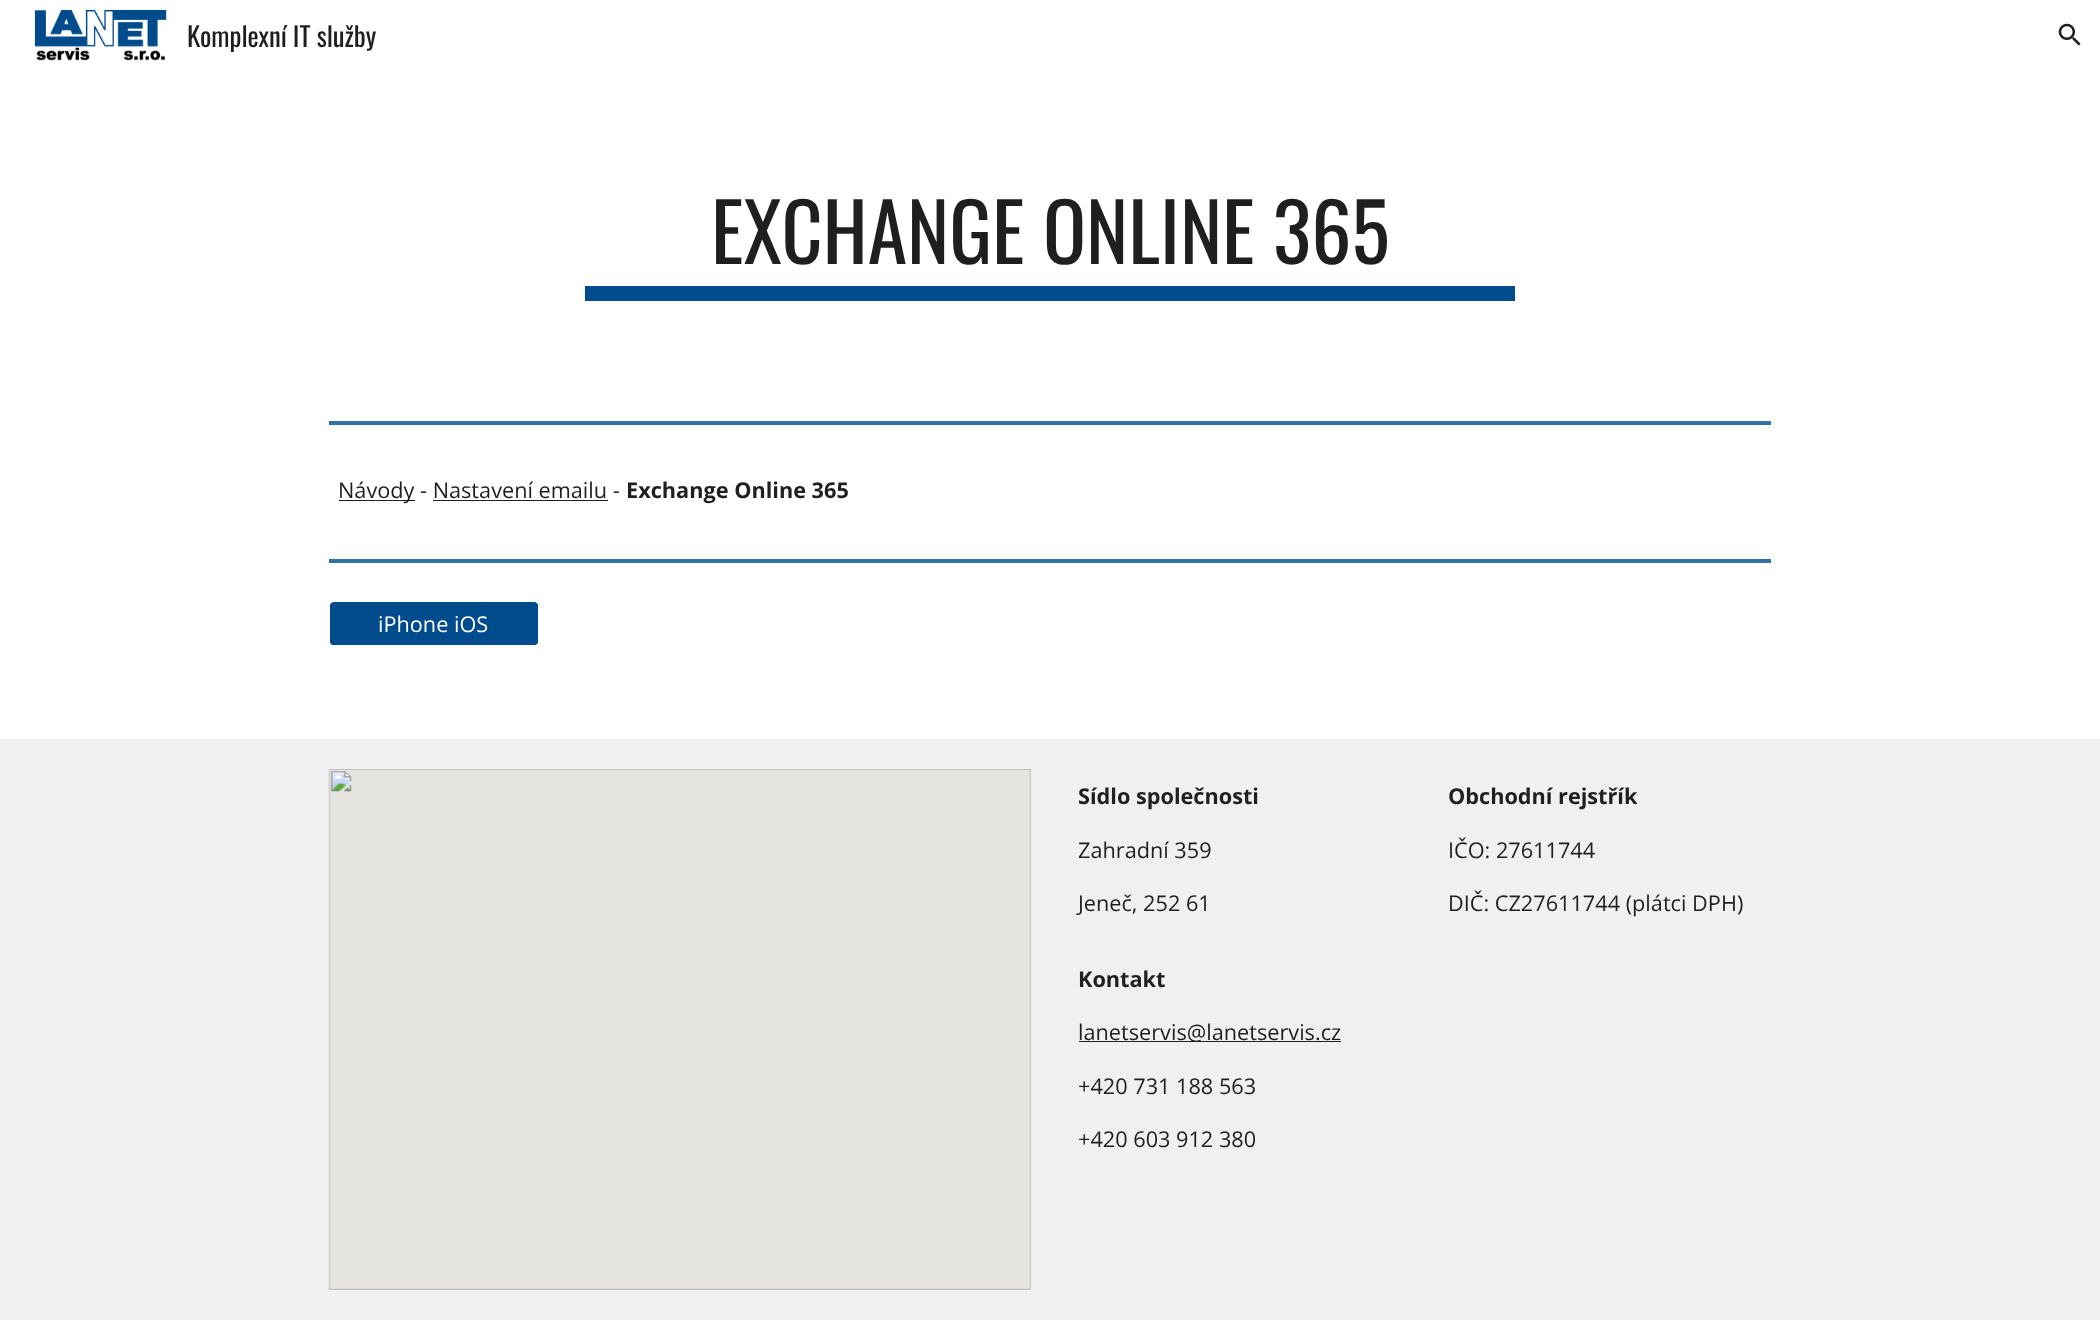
<?xml version="1.0" encoding="UTF-8"?>
<svg xmlns="http://www.w3.org/2000/svg" xmlns:xlink="http://www.w3.org/1999/xlink" width="2100" height="1320">
  <rect width="100%" height="100%" fill="#ffffff" />
  <image x="34" y="9" width="133" height="52" xlink:href="image1.png" />
  <image x="2058" y="23" width="23" height="23" xlink:href="image2.png" />
  <rect x="585" y="286" width="930" height="15" fill="#004b8b" />
  <rect x="329" y="421" width="1442" height="4" fill="#336fa2" />
  <rect x="339" y="500" width="76" height="1" fill="#212121" />
  <rect x="329" y="559" width="1442" height="4" fill="#336fa2" />
  <rect x="329.5" y="601.5" width="209" height="44" rx="4.5" fill="#004b8b" stroke="#ffffff" />
  <rect x="330" y="603" width="208" height="42" rx="4" fill="#004b8b" />
  <rect y="739" width="2100" height="581" fill="#f0f0f0" />
  <image x="328" y="769" width="703" height="521" xlink:href="image3.png" />
  <rect x="1079" y="1041" width="262" height="1" fill="#212121" />
  <text x="187" y="47" style="font-family: Oswald; font-size: 26.75px; fill: #1f1f1f">Komplexní IT služby</text>
  <text x="711" y="264" style="font-family: Oswald; font-size: 80px; fill: #1f1f1f">EXCHANGE ONLINE 365</text>
  <text x="338" y="498" style="font-family: Open Sans; font-size: 21.7px; fill: #1f1f1f">Návody - Nastavení emailu -</text>
  <text x="626" y="498" style="font-family: Open Sans; font-size: 21.7px; font-weight: bold; fill: #1f1f1f">Exchange Online 365</text>
  <rect x="433" y="500" width="175" height="1" fill="#212121" />
  <text x="378" y="632" style="font-family: Open Sans; font-size: 21.7px; fill: #ffffff">iPhone iOS</text>
  <text x="1078" y="804" style="font-family: Open Sans; font-size: 21.7px; font-weight: bold; fill: #1f1f1f">Sídlo společnosti</text>
  <text x="1078" y="858" style="font-family: Open Sans; font-size: 21.7px; fill: #1f1f1f">Zahradní 359</text>
  <text x="1078" y="911" style="font-family: Open Sans; font-size: 21.7px; fill: #1f1f1f">Jeneč, 252 61</text>
  <text x="1078" y="987" style="font-family: Open Sans; font-size: 21.7px; font-weight: bold; fill: #1f1f1f">Kontakt</text>
  <text x="1078" y="1040" style="font-family: Open Sans; font-size: 21.7px; fill: #1f1f1f">lanetservis@lanetservis.cz</text>
  <text x="1078" y="1094" style="font-family: Open Sans; font-size: 21.7px; fill: #1f1f1f">+420 731 188 563</text>
  <text x="1078" y="1147" style="font-family: Open Sans; font-size: 21.7px; fill: #1f1f1f">+420 603 912 380</text>
  <text x="1448" y="804" style="font-family: Open Sans; font-size: 21.7px; font-weight: bold; fill: #1f1f1f">Obchodní rejstřík</text>
  <text x="1448" y="858" style="font-family: Open Sans; font-size: 21.7px; fill: #1f1f1f">IČO: 27611744</text>
  <text x="1448" y="911" style="font-family: Open Sans; font-size: 21.7px; fill: #1f1f1f">DIČ: CZ27611744 (plátci DPH)</text>
</svg>
